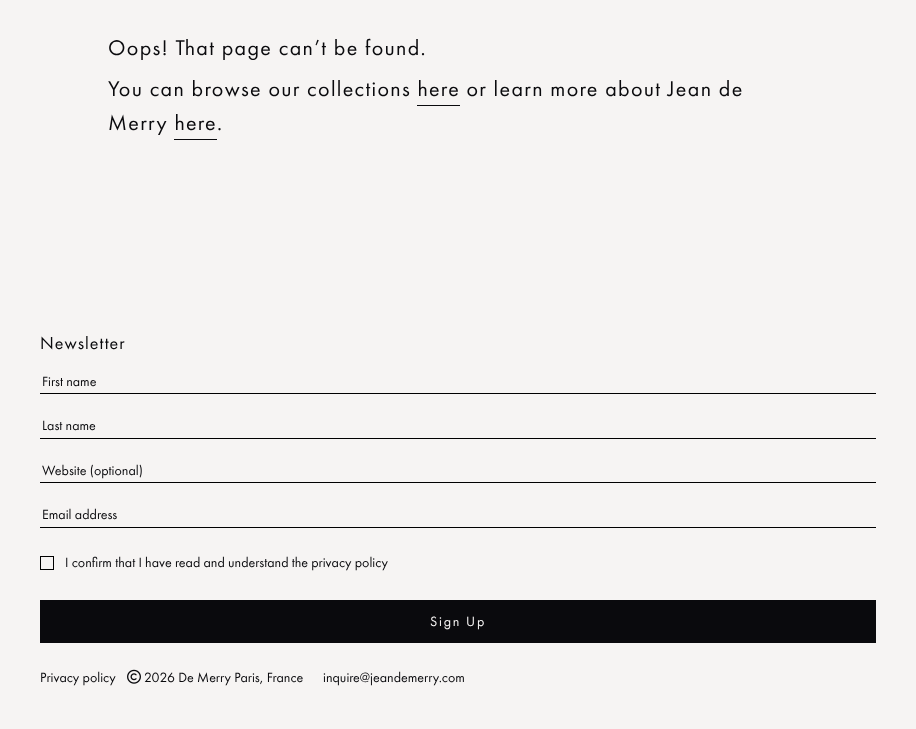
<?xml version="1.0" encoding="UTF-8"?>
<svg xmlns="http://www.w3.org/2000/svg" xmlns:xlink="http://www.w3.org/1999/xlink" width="916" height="729">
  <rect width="100%" height="100%" fill="#f6f4f3" />
  <rect x="417" y="105" width="43" height="1" fill="#0a0a0d" />
  <rect x="174" y="139" width="43" height="1" fill="#0a0a0d" />
  <rect x="40" y="393" width="836" height="1" fill="#000000" />
  <rect x="40" y="438" width="836" height="1" fill="#000000" />
  <rect x="40" y="482" width="836" height="1" fill="#000000" />
  <rect x="40" y="527" width="836" height="1" fill="#000000" />
  <rect x="40.5" y="556.5" width="13" height="13" fill="none" stroke="#000000" />
  <rect x="40" y="600" width="836" height="43" fill="#0a0a0d" />
  <image x="127" y="669" width="14" height="15" xlink:href="image1.png" />
  <text x="108" y="55" style="font-family: Futura PT; font-size: 22px; letter-spacing: 1.32px; fill: #0a0a0d">Oops! That page can’t be found.</text>
  <text x="108" y="96" style="font-family: Futura PT; font-size: 22px; letter-spacing: 1.32px; fill: #0a0a0d">You can browse our collections here or learn more about Jean de</text>
  <text x="108" y="130" style="font-family: Futura PT; font-size: 22px; letter-spacing: 1.32px; fill: #0a0a0d">Merry here.</text>
  <text x="40" y="349" style="font-family: Futura PT; font-size: 18px; letter-spacing: 1px; fill: #0a0a0d">Newsletter</text>
  <text x="42" y="386" style="font-family: Futura PT; font-size: 14px; fill: #0a0a0d">First name</text>
  <text x="42" y="430" style="font-family: Futura PT; font-size: 14px; fill: #0a0a0d">Last name</text>
  <text x="42" y="475" style="font-family: Futura PT; font-size: 14px; fill: #0a0a0d">Website (optional)</text>
  <text x="42" y="519" style="font-family: Futura PT; font-size: 14px; fill: #0a0a0d">Email address</text>
  <text x="65" y="567" style="font-family: Futura PT; font-size: 14px; fill: #0a0a0d">I confirm that I have read and understand the privacy policy</text>
  <text x="430" y="626" style="font-family: Futura PT; font-size: 14px; letter-spacing: 1.75px; fill: #f6f4f3">Sign Up</text>
  <text x="40" y="682" style="font-family: Futura PT; font-size: 14px; fill: #0a0a0d">Privacy policy</text>
  <text x="144" y="682" style="font-family: Futura PT; font-size: 14px; fill: #0a0a0d">2026 De Merry Paris, France</text>
  <text x="323" y="682" style="font-family: Futura PT; font-size: 14px; fill: #0a0a0d">inquire@jeandemerry.com</text>
</svg>
